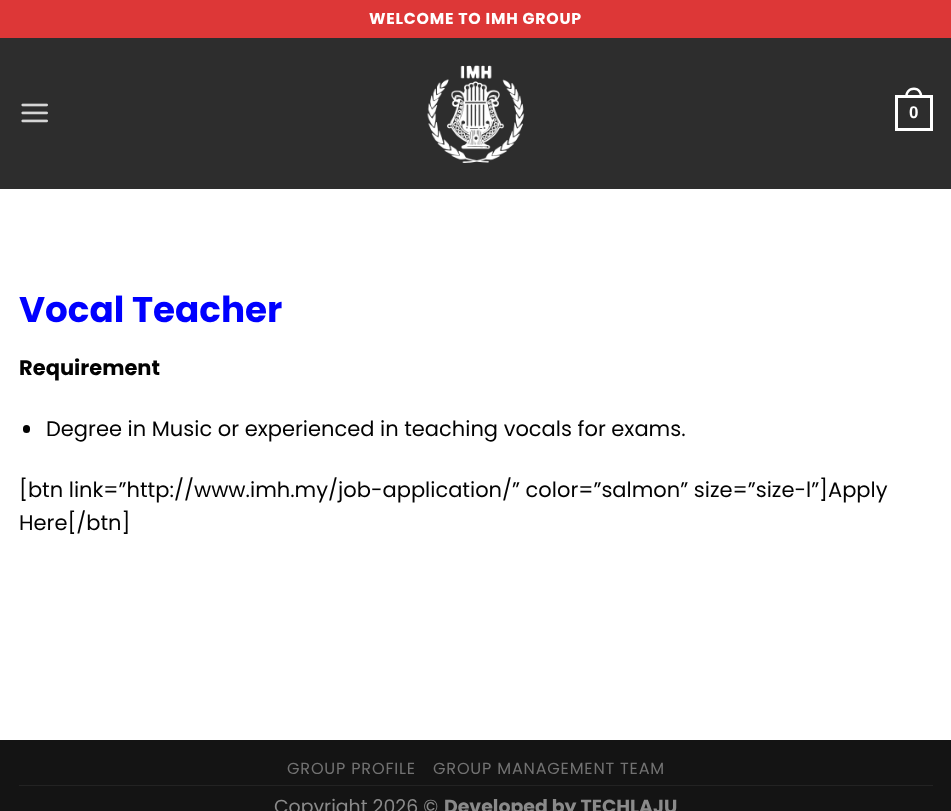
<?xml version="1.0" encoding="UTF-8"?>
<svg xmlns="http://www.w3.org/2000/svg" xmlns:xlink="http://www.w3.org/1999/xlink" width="951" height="811">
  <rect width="100%" height="100%" fill="#ffffff" />
  <rect width="951" height="38" fill="#dd3737" />
  <rect y="38" width="951" height="151" fill="#2d2d2d" />
  <image x="21" y="103" width="27" height="20" xlink:href="image1.png" />
  <image x="427" y="65" width="98" height="98" xlink:href="image2.png" />
  <rect x="896.5" y="96.5" width="35" height="33" fill="none" stroke="#ffffff" stroke-width="3" />
  <path d="M 914 87.5 c 5.5 0 8.5 4.5 8.5 10 h -17.5 c 0 -5.5 3 -10 9 -10 z m 0 2.5 c 4 0 6 3.5 6 7.5 h -12.5 c 0 -4 2 -7.5 6.5 -7.5 z" fill="#ffffff" fill-rule="evenodd" />
  <rect x="23" y="425" width="7" height="8" rx="3.5" fill="#020202" />
  <rect y="740" width="951" height="71" fill="#141414" />
  <rect x="19" y="785" width="914" height="1" fill="#232323" />
  <text x="369" y="24" style="font-family: Poppins; font-size: 15.75px; font-weight: bold; letter-spacing: 0.75px; fill: #ffffff">WELCOME TO IMH GROUP</text>
  <text x="909" y="118" style="font-family: Liberation Sans; font-size: 17px; font-weight: bold; fill: #ffffff">0</text>
  <text x="19" y="322" style="font-family: Poppins; font-size: 35.75px; font-weight: bold; fill: #0000ff">Vocal Teacher</text>
  <text x="19" y="375" style="font-family: Poppins; font-size: 21px; font-weight: bold; fill: #020202">Requirement</text>
  <text x="46" y="436" style="font-family: Poppins; font-size: 21px; fill: #020202">Degree in Music or experienced in teaching vocals for exams.</text>
  <text x="19" y="497" style="font-family: Poppins; font-size: 21px; fill: #020202">[btn link=”http://www.imh.my/job-application/” color=”salmon” size=”size-l”]Apply</text>
  <text x="19" y="530" style="font-family: Poppins; font-size: 21px; fill: #020202">Here[/btn]</text>
  <text x="287" y="774" style="font-family: Poppins; font-size: 16.1px; letter-spacing: 0.8px; fill: #727272">GROUP PROFILE</text>
  <text x="433" y="774" style="font-family: Poppins; font-size: 16.1px; letter-spacing: 0.8px; fill: #727272">GROUP MANAGEMENT TEAM</text>
  <text x="274" y="813" style="font-family: Poppins; font-size: 18.9px; fill: #8a8a8a">Copyright 2026 ©</text>
  <text x="444" y="813" style="font-family: Poppins; font-size: 18.9px; font-weight: bold; fill: #8a8a8a">Developed by TECHLAJU</text>
</svg>
